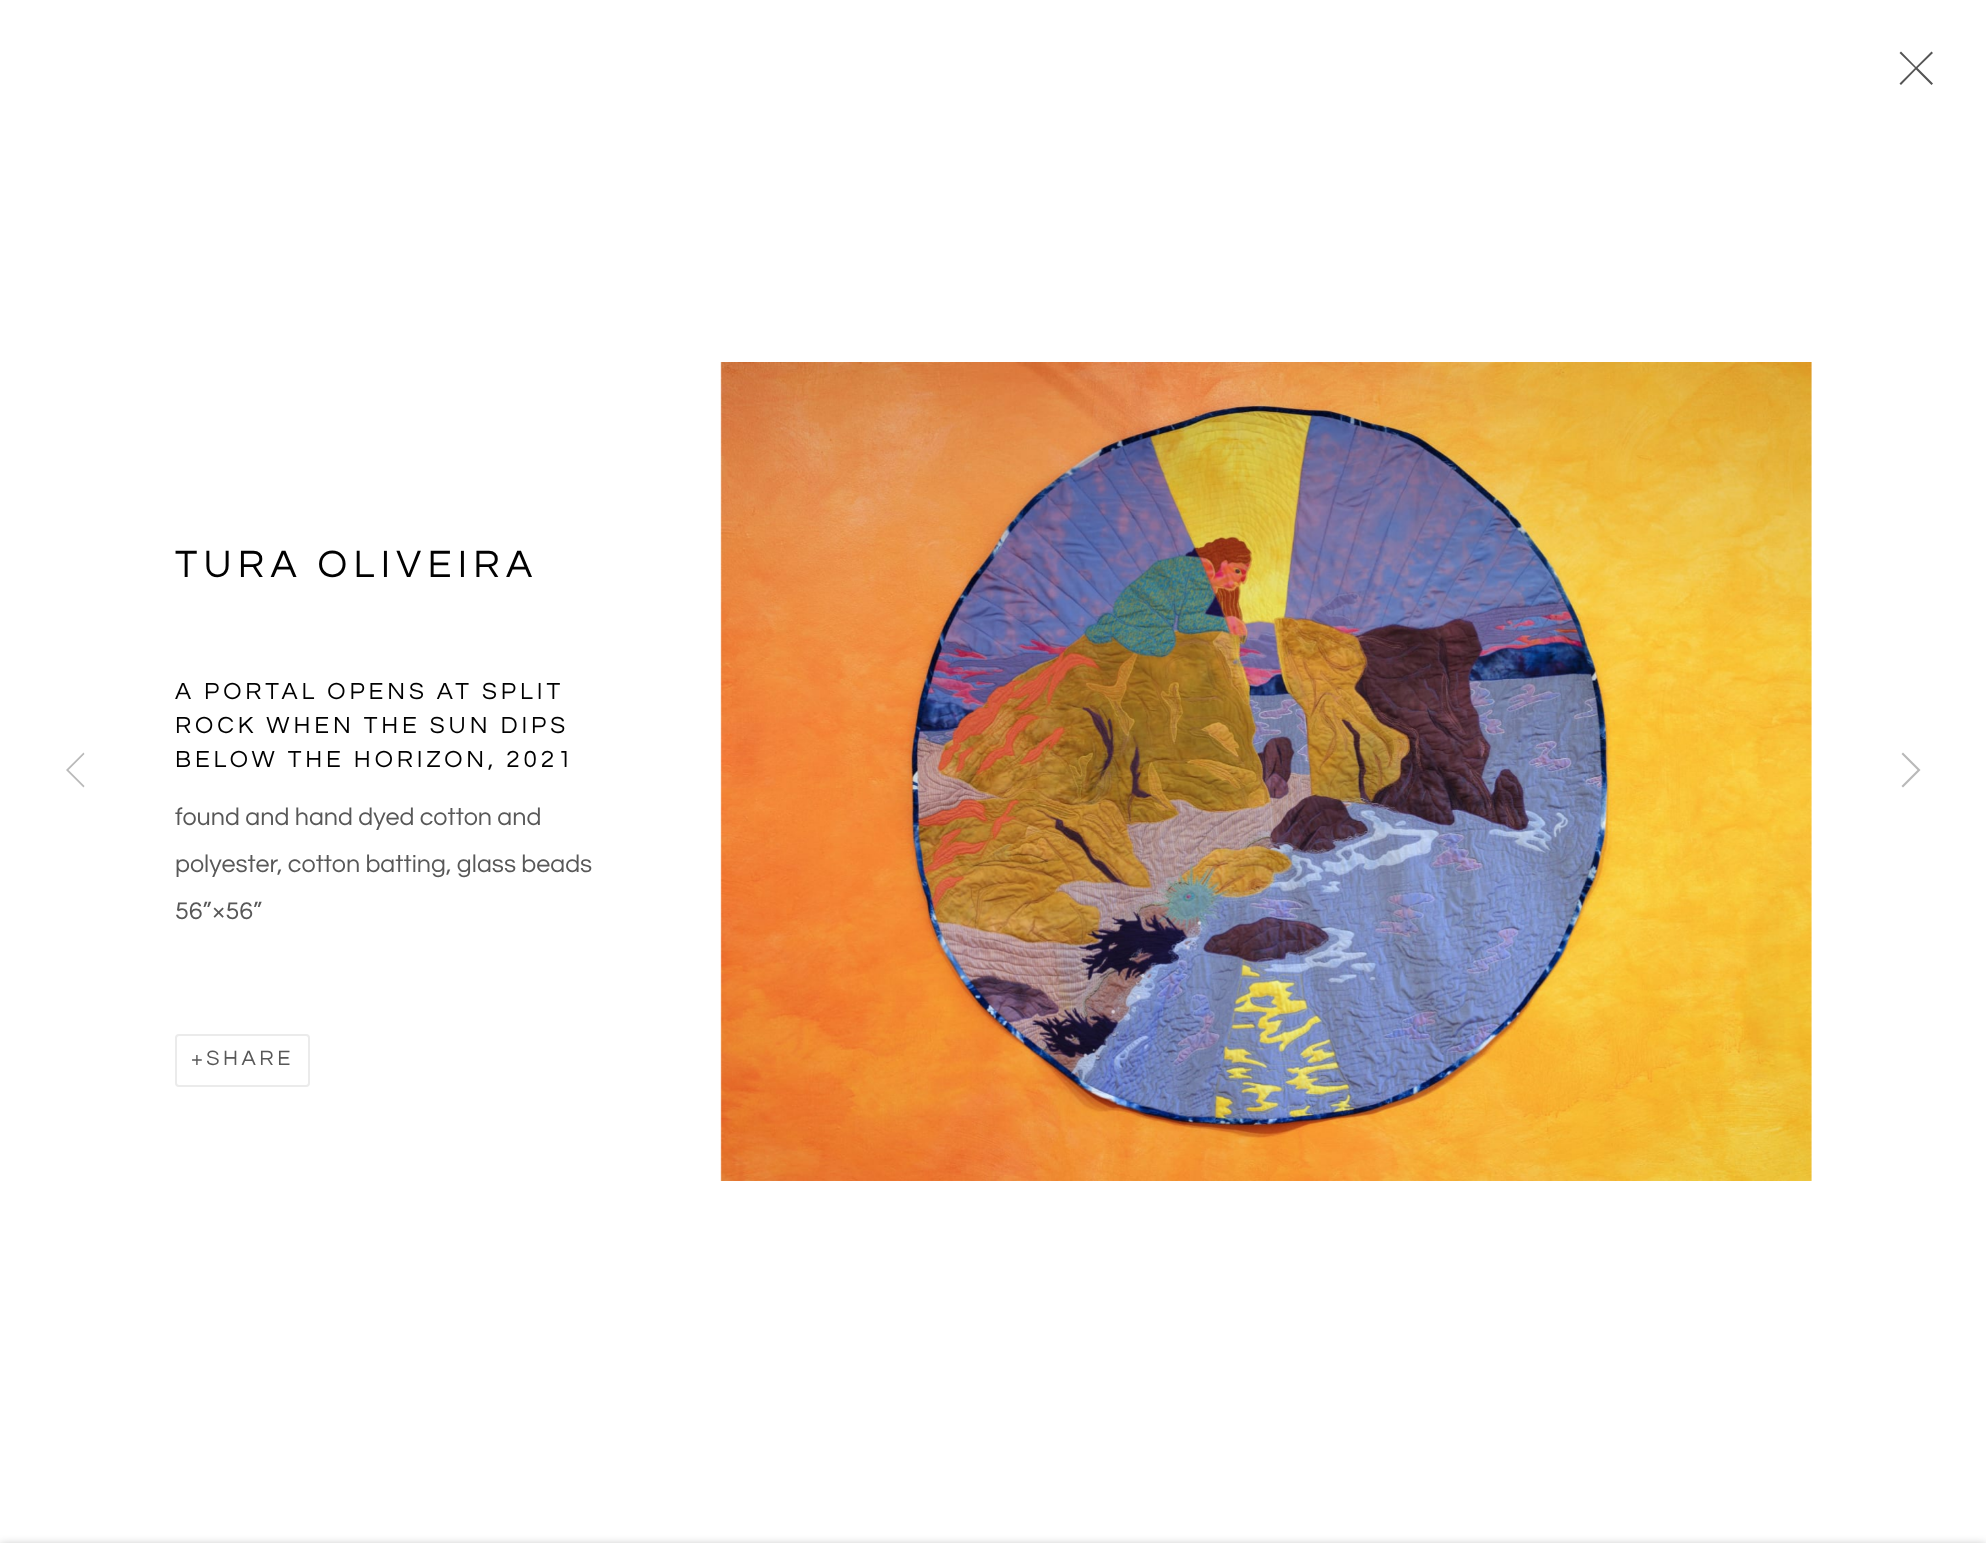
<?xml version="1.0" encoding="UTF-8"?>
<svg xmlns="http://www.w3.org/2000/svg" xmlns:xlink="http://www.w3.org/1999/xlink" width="1986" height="1543">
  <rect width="100%" height="100%" fill="#ffffff" />
  <path d="M 1933 53 l -1.5 -1.5 l -15.5 15.5 l -15 -15.5 l -1.5 1.5 l 15.5 15 l -15.5 15.5 l 1.5 1.5 l 15 -15.5 l 15.5 15.5 l 1.5 -1.5 l -15.5 -15.5 z" fill="#555555" />
  <rect x="176" y="1035" width="133" height="51" rx="3" fill="none" stroke="#ebebeb" stroke-width="2" />
  <image x="720" y="362" width="1092" height="819" xlink:href="image1.png" />
  <path d="M 67.5 771.5 l 16 16 l 1 -1.5 l -16 -16 l 16 -16 l -1 -1.5 l -17.5 17.5 z" fill="#b9b9b9" />
  <path d="M 1920.5 770 l -17.5 -17.5 l -1.5 1.5 l 16 16 l -16 16 l 1.5 1.5 z" fill="#b9b9b9" />
  <rect y="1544" width="1986" height="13" fill="#000000" fill-opacity="0.23" filter="blur(4.5px)" />
  <text x="175" y="577" style="font-family: Questrial; font-size: 39.5px; letter-spacing: 6.25px; fill: #010101">TURA OLIVEIRA</text>
  <text x="175" y="699" style="font-family: Questrial; font-size: 24.25px; letter-spacing: 3.9px; fill: #010101">A PORTAL OPENS AT SPLIT</text>
  <text x="175" y="733" style="font-family: Questrial; font-size: 24.25px; letter-spacing: 3.9px; fill: #010101">ROCK WHEN THE SUN DIPS</text>
  <text x="175" y="767" style="font-family: Questrial; font-size: 24.25px; letter-spacing: 3.9px; fill: #010101">BELOW THE HORIZON, 2021</text>
  <text x="175" y="825" style="font-family: Questrial; font-size: 25.1px; fill: #585858">found and hand dyed cotton and</text>
  <text x="175" y="872" style="font-family: Questrial; font-size: 25.1px; fill: #585858">polyester, cotton batting, glass beads</text>
  <text x="175" y="919" style="font-family: Questrial; font-size: 25.1px; fill: #585858">56”×56”</text>
  <text x="191" y="1065" style="font-family: Questrial; font-size: 21.5px; letter-spacing: 3.5px; fill: #585858">+SHARE</text>
</svg>
